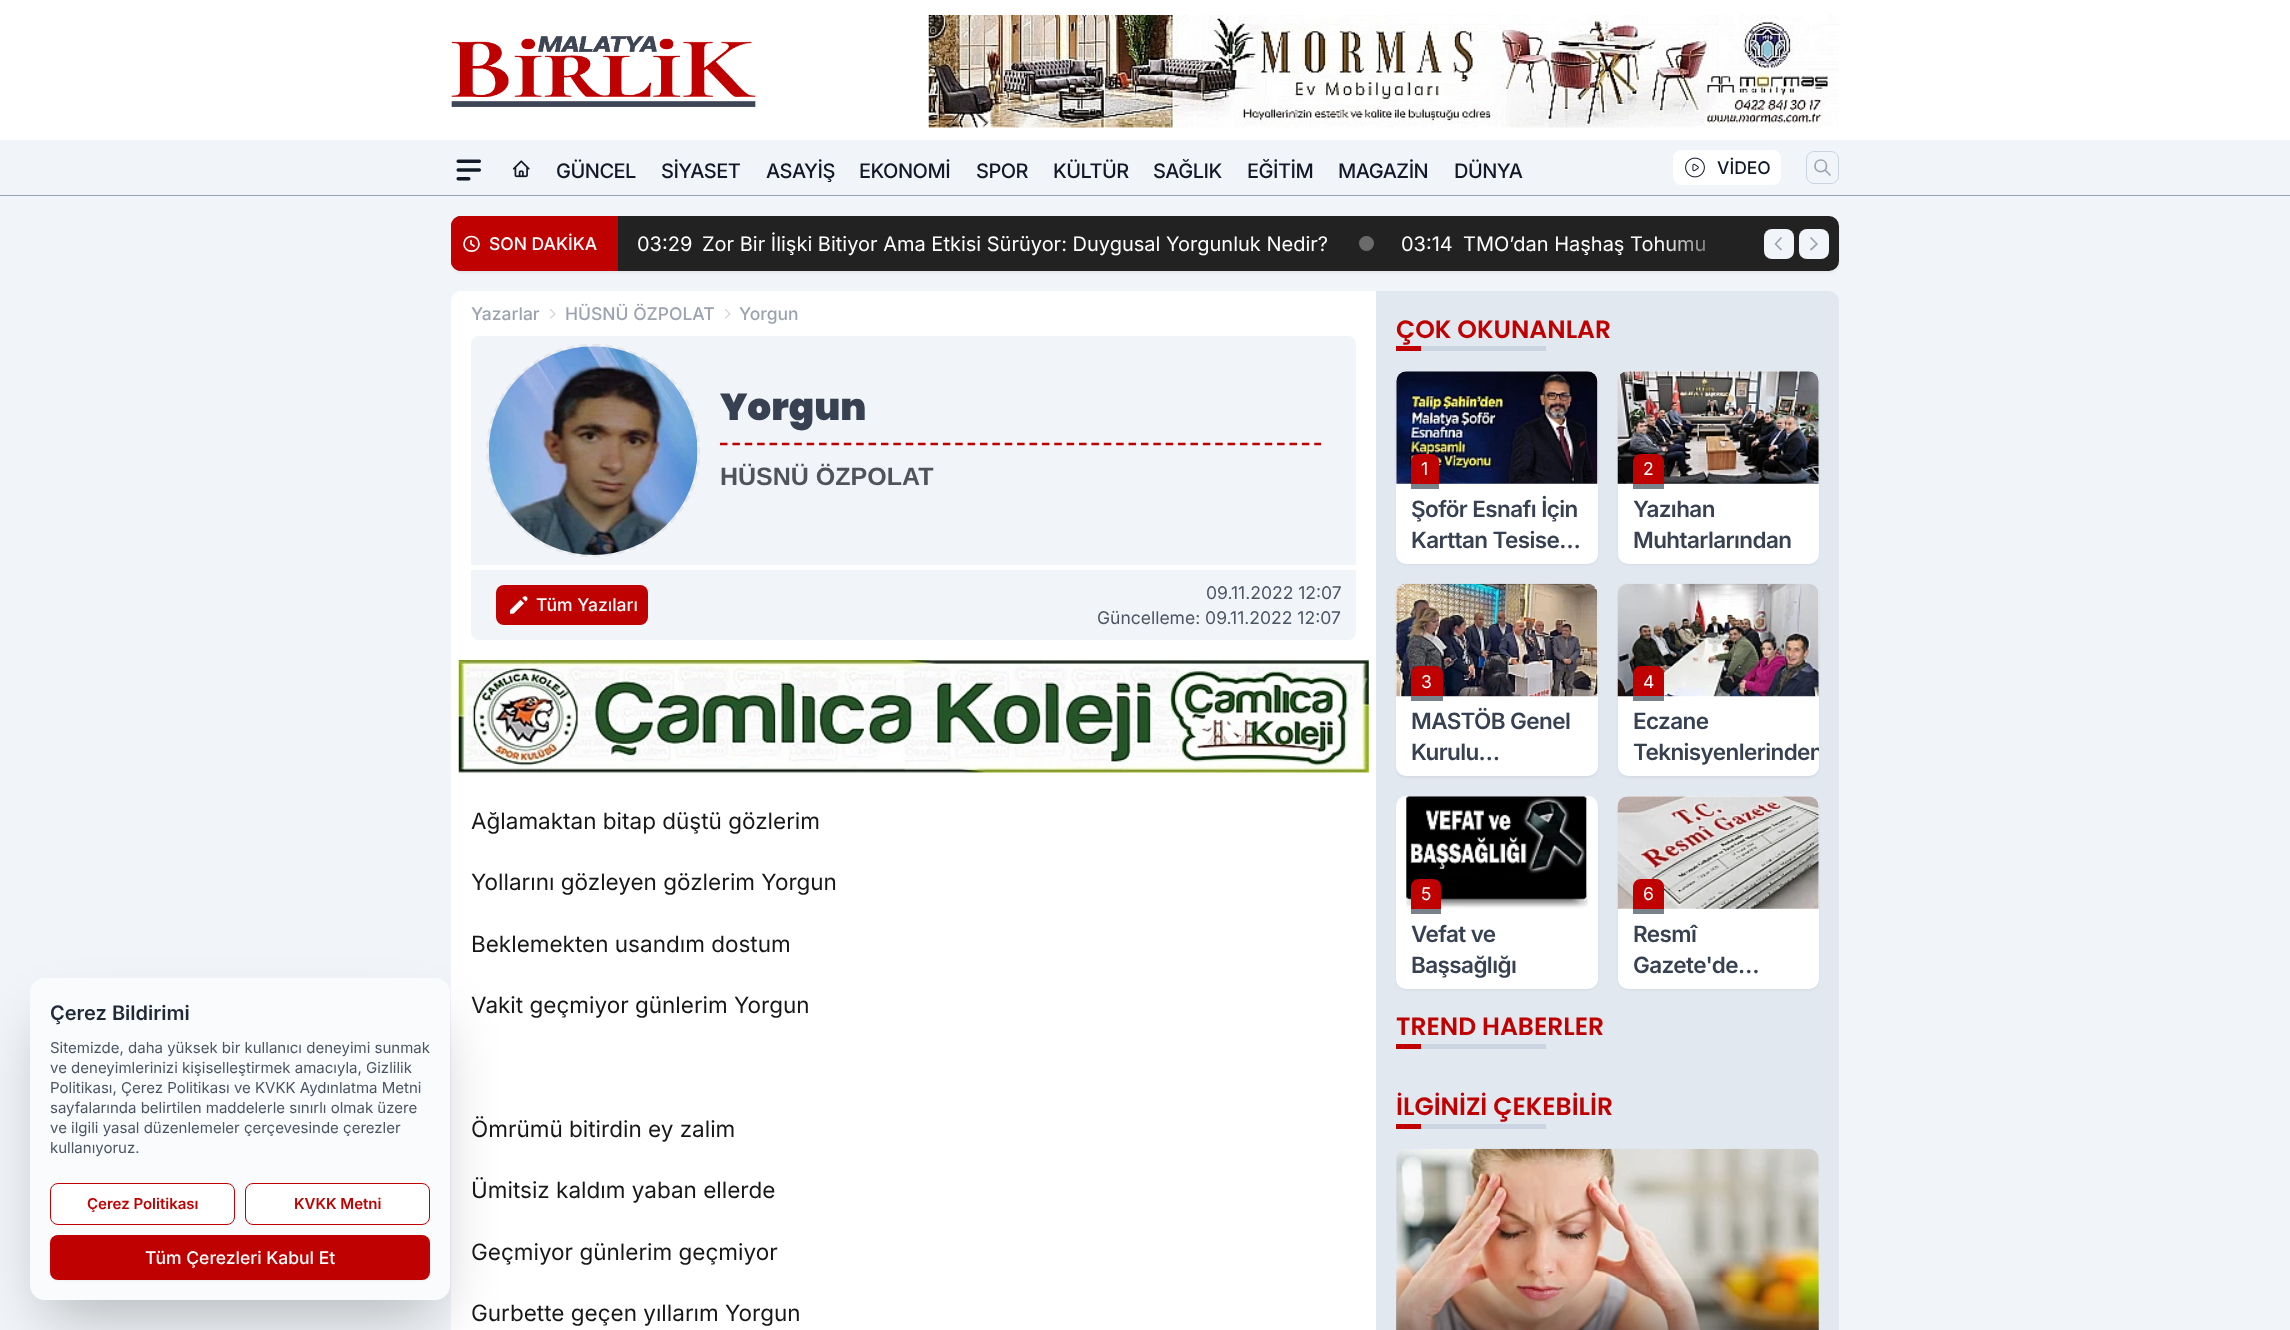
<?xml version="1.0" encoding="UTF-8"?>
<svg xmlns="http://www.w3.org/2000/svg" xmlns:xlink="http://www.w3.org/1999/xlink" width="2290" height="1330">
  <defs>
    <clipPath id="clip1"><path d="M 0 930 h 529 v 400 h -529 z m 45 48 h 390 c 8.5 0 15 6.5 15 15 v 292 c 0 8.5 -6.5 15 -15 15 h -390 c -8.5 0 -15 -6.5 -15 -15 v -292 c 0 -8.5 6.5 -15 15 -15 z" clip-rule="evenodd" /></clipPath>
    <linearGradient id="g1" gradientUnits="userSpaceOnUse" x1="1608" y1="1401" x2="1608" y2="1149"><stop offset="0" stop-color="#000000" stop-opacity="0.75" /><stop offset="0.5" stop-color="#000000" stop-opacity="0" /><stop offset="1" stop-color="#000000" stop-opacity="0" /></linearGradient>
    <linearGradient id="g2" gradientUnits="userSpaceOnUse" x1="1740" y1="256" x2="1660" y2="256"><stop offset="0" stop-color="#222222" /><stop offset="1" stop-color="#222222" stop-opacity="0" /></linearGradient>
    <clipPath id="clip2"><rect x="1618" y="706" width="201" height="63" /></clipPath>
  </defs>
  <rect width="100%" height="100%" fill="#f1f5f9" />
  <rect width="2290" height="140" fill="#ffffff" />
  <image x="451" y="36" width="305" height="71" xlink:href="image1.png" />
  <image x="928" y="15" width="911" height="113" xlink:href="image2.png" />
  <rect y="195" width="2290" height="1" fill="#94a3b8" />
  <image x="456" y="159" width="25" height="22" xlink:href="image3.png" />
  <image x="512" y="160" width="18" height="18" xlink:href="image4.png" />
  <rect x="1673" y="150" width="108" height="35" rx="8" fill="#ffffff" />
  <image x="1685" y="157" width="20" height="21" xlink:href="image5.png" />
  <rect x="1806.5" y="151.5" width="32" height="32" rx="7.5" fill="none" stroke="#cbd5e1" />
  <path d="M 1830 175 l -5 -5 m 1.5 -4 c 0 7.5 -11.5 7.5 -11.5 0 c 0 -8 11.5 -8 11.5 0 z" fill="none" stroke="#9ca3af" stroke-width="1.7" stroke-linecap="round" stroke-linejoin="round" />
  <rect x="451" y="218" width="1388" height="55" rx="10" fill="#000000" fill-opacity="0.05" filter="blur(1px)" />
  <rect x="451" y="216" width="1388" height="55" rx="10" fill="#222222" />
  <path d="M 461 216 h 157 v 55 h -157 c -5.5 0 -10 -4.5 -10 -10 v -35 c 0 -5.5 4.5 -10 10 -10 z" fill="#bf0101" />
  <path d="M 471 240.5 v 3.5 l 3 2 m 5 -2 c 0 9.5 -15 9.5 -15 0 c 0 -10 15 -10 15 0 z" fill="none" stroke="#ffffff" stroke-width="1.7" stroke-linecap="round" stroke-linejoin="round" />
  <circle cx="1366.5" cy="243.5" r="7.5" fill="#6b6b6b" />
  <rect x="1764" y="229" width="30" height="30" rx="8" fill="#f1f5f9" />
  <rect x="1799" y="229" width="30" height="30" rx="8" fill="#f1f5f9" />
  <path d="M 1781 249.5 l -5.5 -5.5 l 5.5 -6 m 30 0 l 6 6 l -6 5.5" fill="none" stroke="#9ca3af" stroke-width="1.7" stroke-linecap="round" stroke-linejoin="round" />
  <rect x="451" y="291" width="1388" height="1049" rx="10" fill="#ffffff" />
  <g clip-path="url(#clip1)">
    <rect x="45" y="1024" width="390" height="292" fill="#000000" fill-opacity="0.25" filter="blur(31px)" />
  </g>
  <rect x="30" y="978" width="420" height="322" rx="15" fill="#ffffff" fill-opacity="0.6" />
  <rect x="50.5" y="1183.5" width="184" height="41" rx="7.5" fill="#ffffff" stroke="#bf0101" />
  <rect x="245.5" y="1183.5" width="184" height="41" rx="7.5" fill="#ffffff" stroke="#bf0101" />
  <rect x="50" y="1236" width="380" height="45" rx="8" fill="#000000" fill-opacity="0.05" filter="blur(1px)" />
  <rect x="50" y="1235" width="380" height="45" rx="8" fill="#bf0101" />
  <path d="M 550.5 309.5 l 4.5 4.5 l -4.5 4" fill="none" stroke="#d1d5db" stroke-width="1.2" stroke-linecap="round" stroke-linejoin="round" />
  <path d="M 725.5 309.5 l 4.5 4.5 l -4.5 4" fill="none" stroke="#d1d5db" stroke-width="1.2" stroke-linecap="round" stroke-linejoin="round" />
  <path d="M 479 336 h 869 c 4.5 0 8 3.5 8 8 v 221 h -885 v -221 c 0 -4.5 3.5 -8 8 -8 z" fill="#f1f5f9" />
  <path d="M 593 345 c 58.5 0 106 47.5 106 105.5 c 0 58.5 -47.5 105.5 -106 105.5 c -58 0 -105.5 -47 -105.5 -105.5 c 0 -58 47.5 -105.5 105.5 -105.5 z" fill="none" stroke="#e5e7eb" stroke-width="2.5" stroke-dasharray="7.5 5" />
  <image x="488" y="346" width="210" height="209" xlink:href="image6.png" />
  <path d="M 720 444 h 601" fill="none" stroke="#bf0101" stroke-width="2.5" stroke-dasharray="7.5 4.88" />
  <path d="M 471 570 h 885 v 62 c 0 4.5 -3.5 8 -8 8 h -869 c -4.5 0 -8 -3.5 -8 -8 z" fill="#f1f5f9" />
  <rect x="496" y="585" width="152" height="40" rx="8" fill="#bf0101" />
  <image x="510" y="596" width="18" height="18" xlink:href="image7.png" />
  <image x="458" y="660" width="911" height="113" xlink:href="image8.png" />
  <path d="M 1376 291 h 453 c 5.5 0 10 4.5 10 10 v 1029 c 0 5.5 -4.5 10 -10 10 h -453 z" fill="#e2e8f0" />
  <rect x="1396" y="346" width="25" height="5" fill="#bf0101" />
  <rect x="1421" y="346" width="125" height="5" fill="#cbd5e1" />
  <rect x="1396" y="373" width="202" height="192" rx="10" fill="#000000" fill-opacity="0.05" filter="blur(1px)" />
  <rect x="1396" y="371" width="202" height="193" rx="10" fill="#ffffff" />
  <image x="1396" y="371" width="202" height="113" xlink:href="image9.png" />
  <path d="M 1419 454 h 12 c 4.5 0 8 3.5 8 8 v 22 h -28 v -22 c 0 -4.5 3.5 -8 8 -8 z" fill="#bf0101" />
  <rect x="1411" y="484" width="28" height="5" fill="#79818b" />
  <rect x="1618" y="373" width="201" height="192" rx="10" fill="#000000" fill-opacity="0.05" filter="blur(1px)" />
  <rect x="1618" y="371" width="201" height="193" rx="10" fill="#ffffff" />
  <image x="1617" y="371" width="202" height="113" xlink:href="image10.png" />
  <path d="M 1641 454 h 15 c 4.5 0 8 3.5 8 8 v 22 h -31 v -22 c 0 -4.5 3.5 -8 8 -8 z" fill="#bf0101" />
  <rect x="1633" y="484" width="31" height="5" fill="#79818b" />
  <rect x="1396" y="585" width="202" height="193" rx="10" fill="#000000" fill-opacity="0.05" filter="blur(1px)" />
  <rect x="1396" y="584" width="202" height="192" rx="10" fill="#ffffff" />
  <image x="1396" y="583" width="202" height="114" xlink:href="image11.png" />
  <path d="M 1419 666 h 16 c 4.5 0 8 3.5 8 8 v 22 h -32 v -22 c 0 -4.5 3.5 -8 8 -8 z" fill="#bf0101" />
  <rect x="1411" y="696" width="32" height="5" fill="#79818b" />
  <rect x="1618" y="585" width="201" height="193" rx="10" fill="#000000" fill-opacity="0.05" filter="blur(1px)" />
  <rect x="1618" y="584" width="201" height="192" rx="10" fill="#ffffff" />
  <image x="1617" y="583" width="202" height="114" xlink:href="image12.png" />
  <path d="M 1641 666 h 15 c 4.5 0 8 3.5 8 8 v 22 h -31 v -22 c 0 -4.5 3.5 -8 8 -8 z" fill="#bf0101" />
  <rect x="1633" y="696" width="31" height="5" fill="#79818b" />
  <rect x="1396" y="798" width="202" height="192" rx="10" fill="#000000" fill-opacity="0.05" filter="blur(1px)" />
  <rect x="1396" y="796" width="202" height="193" rx="10" fill="#ffffff" />
  <image x="1406" y="796" width="182" height="113" xlink:href="image13.png" />
  <path d="M 1419 879 h 14 c 4.5 0 8 3.5 8 8 v 22 h -30 v -22 c 0 -4.5 3.5 -8 8 -8 z" fill="#bf0101" />
  <rect x="1411" y="909" width="30" height="5" fill="#79818b" />
  <rect x="1618" y="798" width="201" height="192" rx="10" fill="#000000" fill-opacity="0.05" filter="blur(1px)" />
  <rect x="1618" y="796" width="201" height="193" rx="10" fill="#ffffff" />
  <image x="1617" y="796" width="202" height="113" xlink:href="image14.png" />
  <path d="M 1641 879 h 15 c 4.5 0 8 3.5 8 8 v 22 h -31 v -22 c 0 -4.5 3.5 -8 8 -8 z" fill="#bf0101" />
  <rect x="1633" y="909" width="31" height="5" fill="#79818b" />
  <rect x="1396" y="1044" width="25" height="5" fill="#bf0101" />
  <rect x="1421" y="1044" width="125" height="5" fill="#cbd5e1" />
  <rect x="1396" y="1124" width="25" height="5" fill="#bf0101" />
  <rect x="1421" y="1124" width="125" height="5" fill="#cbd5e1" />
  <image x="1396" y="1148" width="423" height="182" xlink:href="image15.png" />
  <rect x="1396" y="1279" width="423" height="51" fill="url(#g1)" />
  <text x="556" y="178" style="font-family: Inter; font-size: 20px; font-weight: 500; letter-spacing: -0.5px; fill: #111827">GÜNCEL</text>
  <text x="661" y="178" style="font-family: Inter; font-size: 20px; font-weight: 500; letter-spacing: -0.5px; fill: #111827">SİYASET</text>
  <text x="766" y="178" style="font-family: Inter; font-size: 20px; font-weight: 500; letter-spacing: -0.5px; fill: #111827">ASAYİŞ</text>
  <text x="859" y="178" style="font-family: Inter; font-size: 20px; font-weight: 500; letter-spacing: -0.5px; fill: #111827">EKONOMİ</text>
  <text x="976" y="178" style="font-family: Inter; font-size: 20px; font-weight: 500; letter-spacing: -0.5px; fill: #111827">SPOR</text>
  <text x="1053" y="178" style="font-family: Inter; font-size: 20px; font-weight: 500; letter-spacing: -0.5px; fill: #111827">KÜLTÜR</text>
  <text x="1153" y="178" style="font-family: Inter; font-size: 20px; font-weight: 500; letter-spacing: -0.5px; fill: #111827">SAĞLIK</text>
  <text x="1247" y="178" style="font-family: Inter; font-size: 20px; font-weight: 500; letter-spacing: -0.5px; fill: #111827">EĞİTİM</text>
  <text x="1338" y="178" style="font-family: Inter; font-size: 20px; font-weight: 500; letter-spacing: -0.5px; fill: #111827">MAGAZİN</text>
  <text x="1454" y="178" style="font-family: Inter; font-size: 20px; font-weight: 500; letter-spacing: -0.5px; fill: #111827">DÜNYA</text>
  <text x="1717" y="174" style="font-family: Inter; font-size: 17.5px; font-weight: 500; fill: #111827">VİDEO</text>
  <text x="489" y="250" style="font-family: Inter; font-size: 17.5px; font-weight: 500; fill: #ffffff">SON DAKİKA</text>
  <text x="637" y="251" style="font-family: Inter; font-size: 20px; fill: #ffffff">03:29</text>
  <text x="702" y="251" style="font-family: Inter; font-size: 20px; fill: #ffffff">Zor Bir İlişki Bitiyor Ama Etkisi Sürüyor: Duygusal Yorgunluk Nedir?</text>
  <text x="1401" y="251" style="font-family: Inter; font-size: 20px; fill: #ffffff">03:14</text>
  <text x="1463" y="251" style="font-family: Inter; font-size: 20px; fill: #ffffff">TMO’dan Haşhaş Tohumu</text>
  <rect x="1662" y="239" width="43" height="13" fill="url(#g2)" />
  <text x="50" y="1020" style="font-family: Inter; font-size: 20px; font-weight: 600; fill: #1f2937">Çerez Bildirimi</text>
  <text x="50" y="1053" style="font-family: Inter; font-size: 15px; fill: #4b5563">Sitemizde, daha yüksek bir kullanıcı deneyimi sunmak</text>
  <text x="50" y="1073" style="font-family: Inter; font-size: 15px; fill: #4b5563">ve deneyimlerinizi kişiselleştirmek amacıyla, Gizlilik</text>
  <text x="50" y="1093" style="font-family: Inter; font-size: 15px; fill: #4b5563">Politikası, Çerez Politikası ve KVKK Aydınlatma Metni</text>
  <text x="50" y="1113" style="font-family: Inter; font-size: 15px; fill: #4b5563">sayfalarında belirtilen maddelerle sınırlı olmak üzere</text>
  <text x="50" y="1133" style="font-family: Inter; font-size: 15px; fill: #4b5563">ve ilgili yasal düzenlemeler çerçevesinde çerezler</text>
  <text x="50" y="1153" style="font-family: Inter; font-size: 15px; fill: #4b5563">kullanıyoruz.</text>
  <text x="87" y="1209" style="font-family: Inter; font-size: 15px; font-weight: 600; fill: #bf0101">Çerez Politikası</text>
  <text x="294" y="1209" style="font-family: Inter; font-size: 15px; font-weight: 600; fill: #bf0101">KVKK Metni</text>
  <text x="145" y="1264" style="font-family: Inter; font-size: 17.5px; font-weight: 500; fill: #ffffff">Tüm Çerezleri Kabul Et</text>
  <text x="471" y="320" style="font-family: Inter; font-size: 17.5px; font-weight: 500; fill: #9ca3af">Yazarlar</text>
  <text x="565" y="320" style="font-family: Inter; font-size: 17.5px; font-weight: 500; fill: #9ca3af">HÜSNÜ ÖZPOLAT</text>
  <text x="739" y="320" style="font-family: Inter; font-size: 17.5px; font-weight: 500; fill: #9ca3af">Yorgun</text>
  <text x="720" y="420" style="font-family: Poppins; font-size: 37.5px; font-weight: 900; fill: #374151">Yorgun</text>
  <text x="720" y="485" style="font-family: Liberation Sans; font-size: 25px; font-weight: bold; fill: #52525b">HÜSNÜ ÖZPOLAT</text>
  <text x="536" y="611" style="font-family: Inter; font-size: 17.5px; font-weight: 500; fill: #f9fafb">Tüm Yazıları</text>
  <text x="1206" y="599" style="font-family: Inter; font-size: 17.5px; fill: #4b5563">09.11.2022 12:07</text>
  <text x="1097" y="624" style="font-family: Inter; font-size: 17.5px; fill: #4b5563">Güncelleme: 09.11.2022 12:07</text>
  <text x="471" y="829" style="font-family: Inter; font-size: 22.5px; fill: #171717">Ağlamaktan bitap düştü gözlerim</text>
  <text x="471" y="890" style="font-family: Inter; font-size: 22.5px; fill: #171717">Yollarını gözleyen gözlerim Yorgun</text>
  <text x="471" y="952" style="font-family: Inter; font-size: 22.5px; fill: #171717">Beklemekten usandım dostum</text>
  <text x="471" y="1013" style="font-family: Inter; font-size: 22.5px; fill: #171717">Vakit geçmiyor günlerim Yorgun</text>
  <text x="471" y="1137" style="font-family: Inter; font-size: 22.5px; fill: #171717">Ömrümü bitirdin ey zalim</text>
  <text x="471" y="1198" style="font-family: Inter; font-size: 22.5px; fill: #171717">Ümitsiz kaldım yaban ellerde</text>
  <text x="471" y="1260" style="font-family: Inter; font-size: 22.5px; fill: #171717">Geçmiyor günlerim geçmiyor</text>
  <text x="471" y="1321" style="font-family: Inter; font-size: 22.5px; fill: #171717">Gurbette geçen yıllarım Yorgun</text>
  <text x="1396" y="338" style="font-family: Poppins; font-size: 25px; font-weight: 600; fill: #bf0101">ÇOK OKUNANLAR</text>
  <text x="1421" y="475" style="font-family: Inter; font-size: 17.5px; fill: #ffffff">1</text>
  <text x="1411" y="517" style="font-family: Inter; font-size: 22.5px; font-weight: 600; letter-spacing: -0.6px; fill: #374151">Şoför Esnafı İçin</text>
  <text x="1411" y="548" style="font-family: Inter; font-size: 22.5px; font-weight: 600; letter-spacing: -0.6px; fill: #374151">Karttan Tesise…</text>
  <text x="1643" y="475" style="font-family: Inter; font-size: 17.5px; fill: #ffffff">2</text>
  <text x="1633" y="517" style="font-family: Inter; font-size: 22.5px; font-weight: 600; letter-spacing: -0.6px; fill: #374151">Yazıhan</text>
  <text x="1633" y="548" style="font-family: Inter; font-size: 22.5px; font-weight: 600; letter-spacing: -0.6px; fill: #374151">Muhtarlarından</text>
  <text x="1421" y="688" style="font-family: Inter; font-size: 17.5px; fill: #ffffff">3</text>
  <text x="1411" y="729" style="font-family: Inter; font-size: 22.5px; font-weight: 600; letter-spacing: -0.6px; fill: #374151">MASTÖB Genel</text>
  <text x="1411" y="760" style="font-family: Inter; font-size: 22.5px; font-weight: 600; letter-spacing: -0.6px; fill: #374151">Kurulu…</text>
  <text x="1643" y="688" style="font-family: Inter; font-size: 17.5px; fill: #ffffff">4</text>
  <text x="1633" y="729" style="font-family: Inter; font-size: 22.5px; font-weight: 600; letter-spacing: -0.6px; fill: #374151">Eczane</text>
  <g clip-path="url(#clip2)">
    <text x="1633" y="760" style="font-family: Inter; font-size: 22.5px; font-weight: 600; letter-spacing: -0.6px; fill: #374151">Teknisyenlerinden</text>
  </g>
  <text x="1421" y="900" style="font-family: Inter; font-size: 17.5px; fill: #ffffff">5</text>
  <text x="1411" y="942" style="font-family: Inter; font-size: 22.5px; font-weight: 600; letter-spacing: -0.6px; fill: #374151">Vefat ve</text>
  <text x="1411" y="973" style="font-family: Inter; font-size: 22.5px; font-weight: 600; letter-spacing: -0.6px; fill: #374151">Başsağlığı</text>
  <text x="1643" y="900" style="font-family: Inter; font-size: 17.5px; fill: #ffffff">6</text>
  <text x="1633" y="942" style="font-family: Inter; font-size: 22.5px; font-weight: 600; letter-spacing: -0.6px; fill: #374151">Resmî</text>
  <text x="1633" y="973" style="font-family: Inter; font-size: 22.5px; font-weight: 600; letter-spacing: -0.6px; fill: #374151">Gazete'de…</text>
  <text x="1396" y="1035" style="font-family: Poppins; font-size: 25px; font-weight: 600; fill: #bf0101">TREND HABERLER</text>
  <text x="1396" y="1115" style="font-family: Poppins; font-size: 25px; font-weight: 600; fill: #bf0101">İLGİNİZİ ÇEKEBİLİR</text>
</svg>
